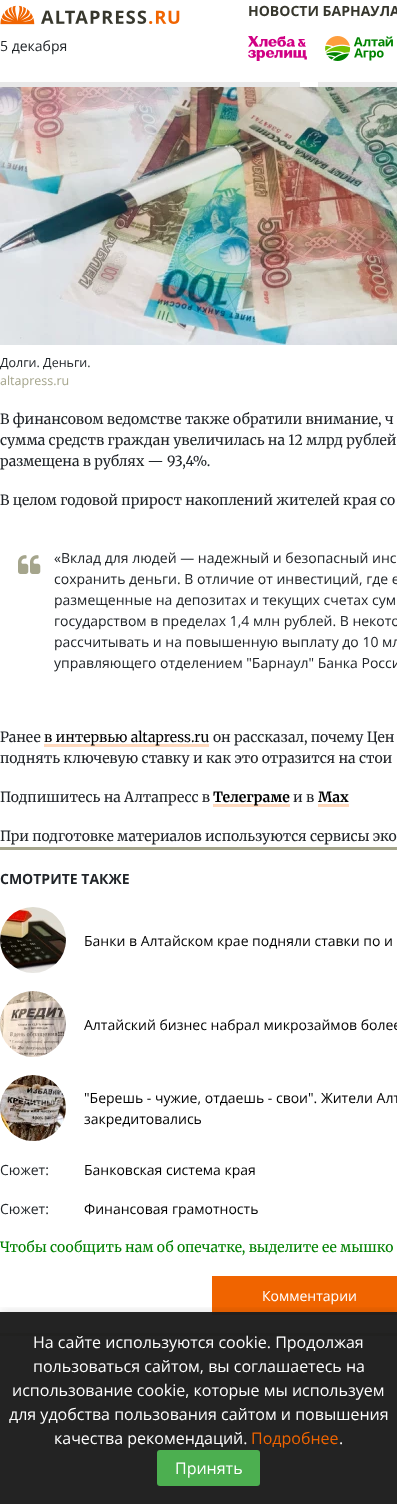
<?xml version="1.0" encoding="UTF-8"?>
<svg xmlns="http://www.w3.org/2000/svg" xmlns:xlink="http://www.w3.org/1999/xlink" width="397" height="1504">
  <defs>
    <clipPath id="clip1"><rect x="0" y="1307" width="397" height="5" /></clipPath>
  </defs>
  <rect width="100%" height="100%" fill="#ffffff" />
  <rect y="1312" width="397" height="192" fill="#232323" />
  <image x="0" y="5" width="180" height="20" xlink:href="image1.png" />
  <image x="248" y="36" width="59" height="25" xlink:href="image2.png" />
  <image x="325" y="36" width="68" height="25" xlink:href="image3.png" />
  <rect y="82" width="300" height="5" fill="#e8e8e8" />
  <rect x="318" y="82" width="79" height="5" fill="#e8e8e8" />
  <image x="0" y="87" width="397" height="258" xlink:href="image4.png" />
  <image x="18" y="555" width="23" height="19" xlink:href="image5.png" />
  <rect x="44" y="744" width="165" height="3" fill="#ffd9bd" />
  <rect x="213" y="804" width="77" height="3" fill="#ffd9bd" />
  <rect x="318" y="804" width="31" height="3" fill="#ffd9bd" />
  <rect y="847" width="397" height="3" fill="#a5a58c" />
  <image x="0" y="907" width="66" height="66" xlink:href="image6.png" />
  <image x="0" y="991" width="66" height="66" xlink:href="image7.png" />
  <image x="0" y="1075" width="66" height="66" xlink:href="image8.png" />
  <rect x="212" y="1276" width="185" height="36" fill="#f06400" />
  <rect x="212" y="1312" width="185" height="3" fill="#221f1d" />
  <rect y="1333" width="397" height="3" fill="#212120" />
  <g clip-path="url(#clip1)">
    <rect y="1310" width="397" height="192" fill="#000000" fill-opacity="0.1" filter="blur(4px)" />
  </g>
  <rect x="157" y="1450" width="103" height="36" rx="3" fill="#4caf50" />
  <text x="248" y="16" style="font-family: Open Sans; font-size: 14px; font-weight: bold; fill: #37372d">НОВОСТИ БАРНАУЛА</text>
  <text x="0" y="51" style="font-family: Open Sans; font-size: 14px; fill: #212529">5 декабря</text>
  <text x="0" y="367" style="font-family: Open Sans; font-size: 12.5px; fill: #212529">Долги. Деньги.</text>
  <text x="0" y="385" style="font-family: Open Sans; font-size: 12.5px; fill: #a5a58c">altapress.ru</text>
  <text x="0" y="424" style="font-family: Merriweather; font-size: 14px; fill: #212529">В финансовом ведомстве также обратили внимание, ч</text>
  <text x="0" y="445" style="font-family: Merriweather; font-size: 14px; fill: #212529">сумма средств граждан увеличилась на 12 млрд рублей</text>
  <text x="0" y="466" style="font-family: Merriweather; font-size: 14px; fill: #212529">размещена в рублях — 93,4%.</text>
  <text x="0" y="505" style="font-family: Merriweather; font-size: 14px; fill: #212529">В целом годовой прирост накоплений жителей края со</text>
  <text x="54" y="563" style="font-family: Open Sans; font-size: 14px; fill: #212529">«Вклад для людей — надежный и безопасный инс</text>
  <text x="54" y="584" style="font-family: Open Sans; font-size: 14px; fill: #212529">сохранить деньги. В отличие от инвестиций, где е</text>
  <text x="54" y="605" style="font-family: Open Sans; font-size: 14px; fill: #212529">размещенные на депозитах и текущих счетах сум</text>
  <text x="54" y="626" style="font-family: Open Sans; font-size: 14px; fill: #212529">государством в пределах 1,4 млн рублей. В некото</text>
  <text x="54" y="647" style="font-family: Open Sans; font-size: 14px; fill: #212529">рассчитывать и на повышенную выплату до 10 мл</text>
  <text x="54" y="668" style="font-family: Open Sans; font-size: 14px; fill: #212529">управляющего отделением "Барнаул" Банка Росси</text>
  <text x="0" y="742" style="font-family: Merriweather; font-size: 14px; fill: #212529">Ранее</text>
  <text x="44" y="742" style="font-family: Merriweather; font-size: 14px; fill: #000000">в интервью altapress.ru</text>
  <text x="213" y="742" style="font-family: Merriweather; font-size: 14px; fill: #212529">он рассказал, почему Цен</text>
  <text x="0" y="763" style="font-family: Merriweather; font-size: 14px; fill: #212529">поднять ключевую ставку и как это отразится на стои</text>
  <text x="0" y="802" style="font-family: Merriweather; font-size: 14px; fill: #212529">Подпишитесь на Алтапресс в</text>
  <text x="213" y="802" style="font-family: Merriweather; font-size: 14px; font-weight: bold; fill: #000000">Телеграме</text>
  <text x="293" y="802" style="font-family: Merriweather; font-size: 14px; fill: #212529">и в</text>
  <text x="318" y="802" style="font-family: Merriweather; font-size: 14px; font-weight: bold; fill: #000000">Max</text>
  <text x="0" y="841" style="font-family: Merriweather; font-size: 14px; fill: #212529">При подготовке материалов используются сервисы эко</text>
  <text x="0" y="884" style="font-family: Open Sans; font-size: 14px; font-weight: bold; fill: #212529">СМОТРИТЕ ТАКЖЕ</text>
  <text x="84" y="946" style="font-family: Open Sans; font-size: 14px; fill: #000000">Банки в Алтайском крае подняли ставки по и</text>
  <text x="84" y="1030" style="font-family: Open Sans; font-size: 14px; fill: #000000">Алтайский бизнес набрал микрозаймов более</text>
  <text x="84" y="1103" style="font-family: Open Sans; font-size: 14px; fill: #000000">"Берешь - чужие, отдаешь - свои". Жители Алт</text>
  <text x="84" y="1124" style="font-family: Open Sans; font-size: 14px; fill: #000000">закредитовались</text>
  <text x="0" y="1175" style="font-family: Open Sans; font-size: 14px; fill: #212529">Сюжет:</text>
  <text x="84" y="1175" style="font-family: Open Sans; font-size: 14px; fill: #000000">Банковская система края</text>
  <text x="0" y="1214" style="font-family: Open Sans; font-size: 14px; fill: #212529">Сюжет:</text>
  <text x="84" y="1214" style="font-family: Open Sans; font-size: 14px; fill: #000000">Финансовая грамотность</text>
  <text x="0" y="1252" style="font-family: Merriweather; font-size: 14px; fill: #008000">Чтобы сообщить нам об опечатке, выделите ее мышко</text>
  <text x="262" y="1301" style="font-family: Open Sans; font-size: 14px; fill: #ffffff">Комментарии</text>
  <text x="33" y="1348" style="font-family: Open Sans; font-size: 16px; fill: #ffffff">На сайте используются cookie. Продолжая</text>
  <text x="33" y="1372" style="font-family: Open Sans; font-size: 16px; fill: #ffffff">пользоваться сайтом, вы соглашаетесь на</text>
  <text x="12" y="1396" style="font-family: Open Sans; font-size: 16px; fill: #ffffff">использование cookie, которые мы используем</text>
  <text x="9" y="1420" style="font-family: Open Sans; font-size: 16px; fill: #ffffff">для удобства пользования сайтом и повышения</text>
  <text x="54" y="1444" style="font-family: Open Sans; font-size: 16px; fill: #ffffff">качества рекомендаций.</text>
  <text x="251" y="1444" style="font-family: Open Sans; font-size: 16px; fill: #f06400">Подробнее</text>
  <text x="339" y="1444" style="font-family: Open Sans; font-size: 16px; fill: #ffffff">.</text>
  <text x="175" y="1474" style="font-family: Open Sans; font-size: 16px; fill: #ffffff">Принять</text>
</svg>
